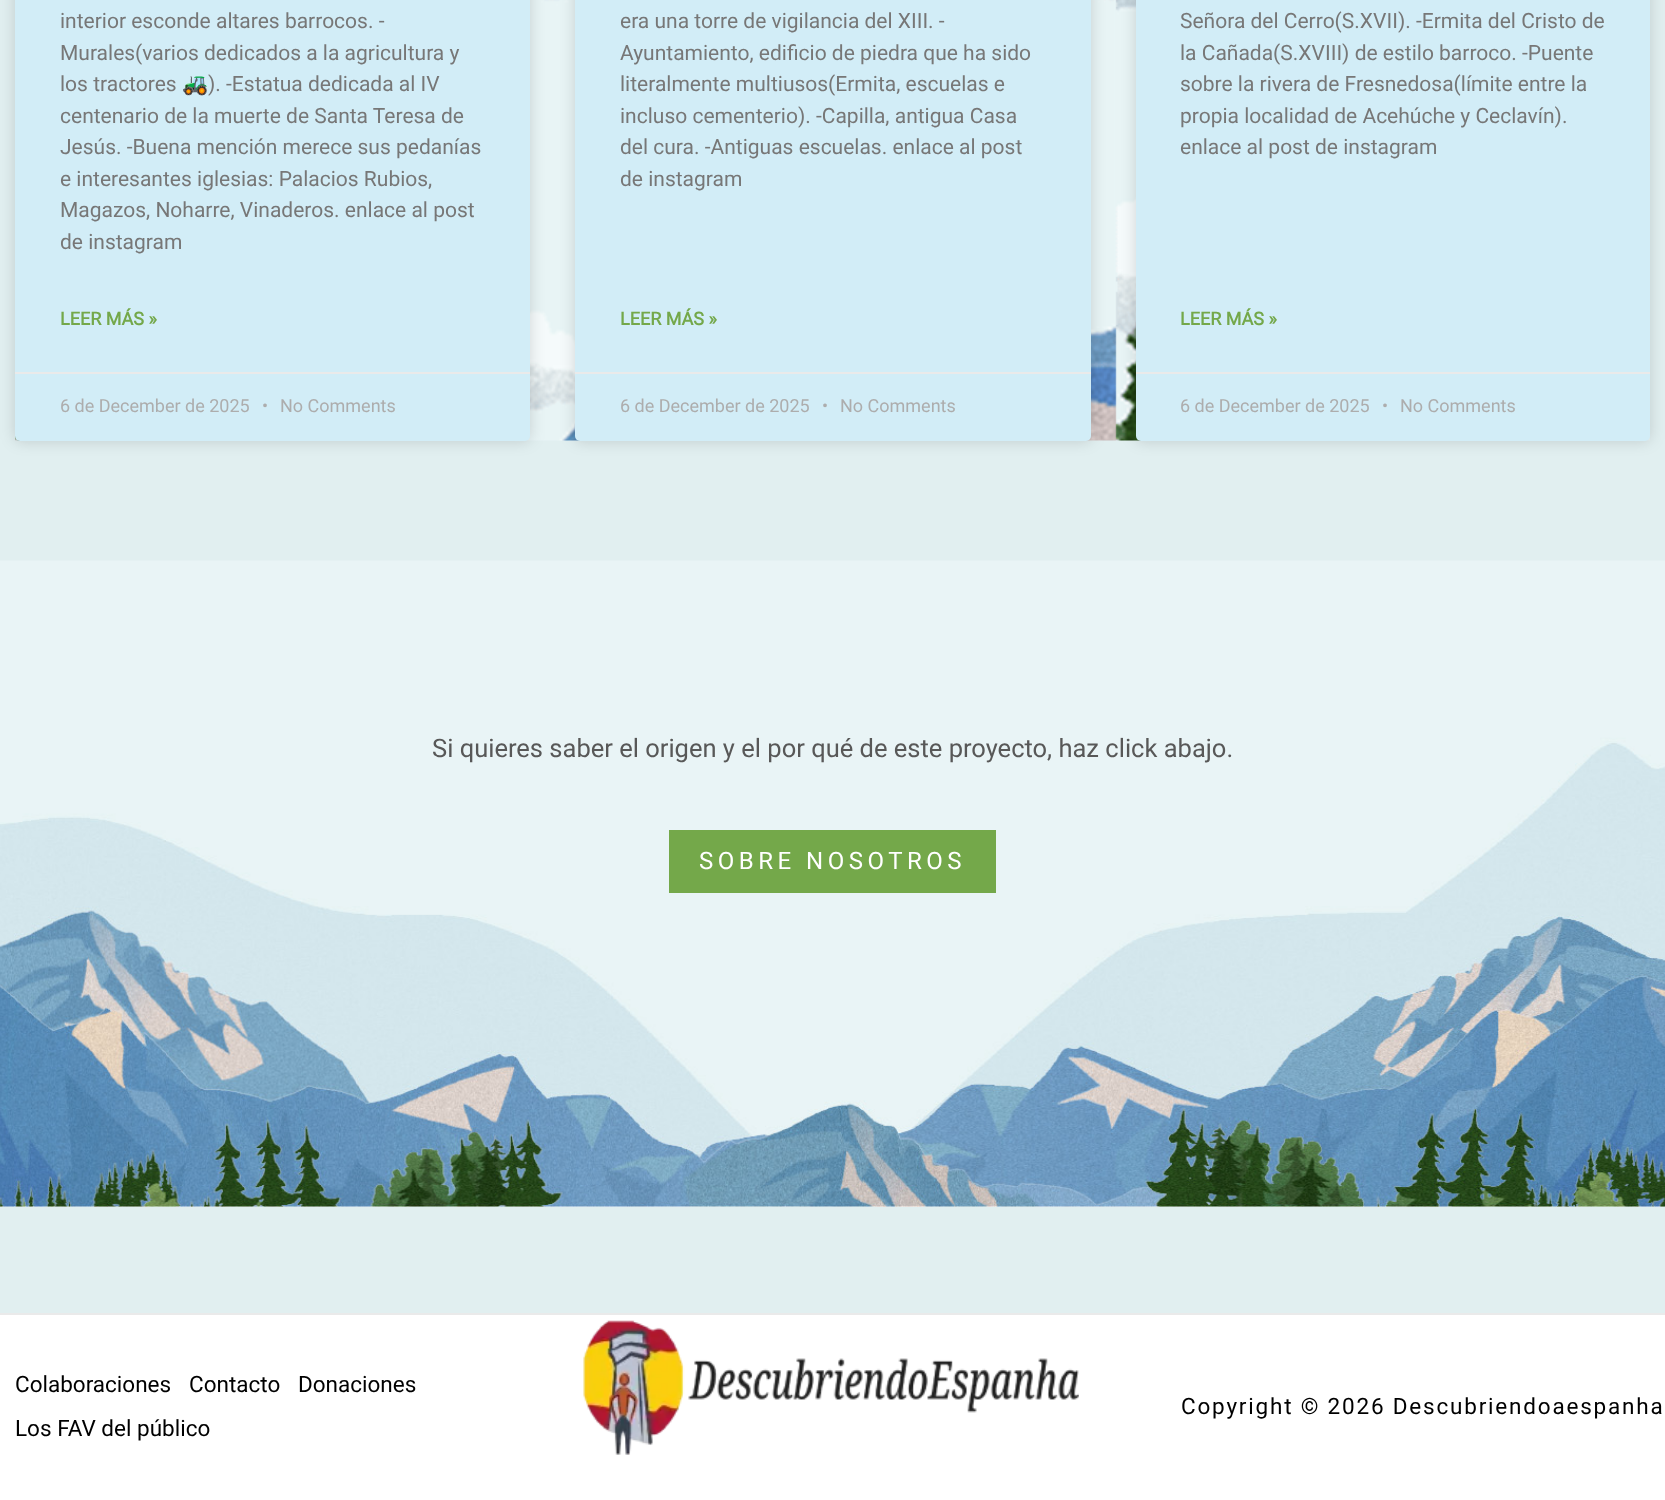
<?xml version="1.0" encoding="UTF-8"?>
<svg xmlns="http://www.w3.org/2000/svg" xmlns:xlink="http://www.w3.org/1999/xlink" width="1665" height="1500">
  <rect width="100%" height="100%" fill="#e1eff0" />
  <image x="15" y="0" width="1635" height="441" xlink:href="image1.png" />
  <rect x="15" y="-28" width="515" height="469" rx="5" fill="#000000" fill-opacity="0.15" filter="blur(7.5px)" />
  <rect x="15" y="-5" width="515" height="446" rx="5" fill="#d2edf7" />
  <rect x="15" y="372" width="515" height="2" fill="#eaeaea" />
  <rect x="575" y="-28" width="516" height="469" rx="5" fill="#000000" fill-opacity="0.15" filter="blur(7.5px)" />
  <rect x="575" y="-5" width="516" height="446" rx="5" fill="#d2edf7" />
  <rect x="575" y="372" width="516" height="2" fill="#eaeaea" />
  <rect x="1136" y="-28" width="514" height="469" rx="5" fill="#000000" fill-opacity="0.15" filter="blur(7.5px)" />
  <rect x="1136" y="-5" width="514" height="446" rx="5" fill="#d2edf7" />
  <rect x="1136" y="372" width="514" height="2" fill="#eaeaea" />
  <image x="0" y="560" width="1665" height="647" xlink:href="image2.png" />
  <rect x="669" y="830" width="327" height="63" fill="#74a84a" />
  <rect y="1315" width="1665" height="185" fill="#ffffff" />
  <rect y="1313" width="1665" height="2" fill="#eaeaea" />
  <image x="583" y="1320" width="496" height="135" xlink:href="image3.png" />
  <text x="60" y="28" style="font-family: Roboto; font-size: 21px; fill: #777777">interior esconde altares barrocos. -</text>
  <text x="60" y="60" style="font-family: Roboto; font-size: 21px; fill: #777777">Murales(varios dedicados a la agricultura y</text>
  <text x="60" y="91" style="font-family: Roboto; font-size: 21px; fill: #777777">los tractores</text>
  <text x="182" y="91" style="font-family: Noto Color Emoji; font-size: 21px; fill: #777777">🚜</text>
  <text x="208" y="91" style="font-family: Roboto; font-size: 21px; fill: #777777">). -Estatua dedicada al IV</text>
  <text x="60" y="123" style="font-family: Roboto; font-size: 21px; fill: #777777">centenario de la muerte de Santa Teresa de</text>
  <text x="60" y="154" style="font-family: Roboto; font-size: 21px; fill: #777777">Jesús. -Buena mención merece sus pedanías</text>
  <text x="60" y="186" style="font-family: Roboto; font-size: 21px; fill: #777777">e interesantes iglesias: Palacios Rubios,</text>
  <text x="60" y="217" style="font-family: Roboto; font-size: 21px; fill: #777777">Magazos, Noharre, Vinaderos. enlace al post</text>
  <text x="60" y="249" style="font-family: Roboto; font-size: 21px; fill: #777777">de instagram</text>
  <text x="60" y="325" style="font-family: Roboto; font-size: 18px; font-weight: bold; fill: #74a84a">LEER MÁS »</text>
  <text x="60" y="412" style="font-family: Roboto; font-size: 18px; fill: #adadad">6 de December de 2025</text>
  <text x="262" y="412" style="font-family: Roboto; font-size: 18px; fill: #adadad">•</text>
  <text x="280" y="412" style="font-family: Roboto; font-size: 18px; fill: #adadad">No Comments</text>
  <text x="620" y="28" style="font-family: Roboto; font-size: 21px; fill: #777777">era una torre de vigilancia del XIII. -</text>
  <text x="620" y="60" style="font-family: Roboto; font-size: 21px; fill: #777777">Ayuntamiento, edificio de piedra que ha sido</text>
  <text x="620" y="91" style="font-family: Roboto; font-size: 21px; fill: #777777">literalmente multiusos(Ermita, escuelas e</text>
  <text x="620" y="123" style="font-family: Roboto; font-size: 21px; fill: #777777">incluso cementerio). -Capilla, antigua Casa</text>
  <text x="620" y="154" style="font-family: Roboto; font-size: 21px; fill: #777777">del cura. -Antiguas escuelas. enlace al post</text>
  <text x="620" y="186" style="font-family: Roboto; font-size: 21px; fill: #777777">de instagram</text>
  <text x="620" y="325" style="font-family: Roboto; font-size: 18px; font-weight: bold; fill: #74a84a">LEER MÁS »</text>
  <text x="620" y="412" style="font-family: Roboto; font-size: 18px; fill: #adadad">6 de December de 2025</text>
  <text x="822" y="412" style="font-family: Roboto; font-size: 18px; fill: #adadad">•</text>
  <text x="840" y="412" style="font-family: Roboto; font-size: 18px; fill: #adadad">No Comments</text>
  <text x="1180" y="28" style="font-family: Roboto; font-size: 21px; fill: #777777">Señora del Cerro(S.XVII). -Ermita del Cristo de</text>
  <text x="1180" y="60" style="font-family: Roboto; font-size: 21px; fill: #777777">la Cañada(S.XVIII) de estilo barroco. -Puente</text>
  <text x="1180" y="91" style="font-family: Roboto; font-size: 21px; fill: #777777">sobre la rivera de Fresnedosa(límite entre la</text>
  <text x="1180" y="123" style="font-family: Roboto; font-size: 21px; fill: #777777">propia localidad de Acehúche y Ceclavín).</text>
  <text x="1180" y="154" style="font-family: Roboto; font-size: 21px; fill: #777777">enlace al post de instagram</text>
  <text x="1180" y="325" style="font-family: Roboto; font-size: 18px; font-weight: bold; fill: #74a84a">LEER MÁS »</text>
  <text x="1180" y="412" style="font-family: Roboto; font-size: 18px; fill: #adadad">6 de December de 2025</text>
  <text x="1382" y="412" style="font-family: Roboto; font-size: 18px; fill: #adadad">•</text>
  <text x="1400" y="412" style="font-family: Roboto; font-size: 18px; fill: #adadad">No Comments</text>
  <text x="432" y="757" style="font-family: Roboto; font-size: 25.5px; fill: #585858">Si quieres saber el origen y el por qué de este proyecto, haz click abajo.</text>
  <text x="699" y="869" style="font-family: Roboto; font-size: 24px; letter-spacing: 4.5px; fill: #ffffff">SOBRE NOSOTROS</text>
  <text x="15" y="1392" style="font-family: Roboto; font-size: 22.5px; fill: #000000">Colaboraciones</text>
  <text x="189" y="1392" style="font-family: Roboto; font-size: 22.5px; fill: #000000">Contacto</text>
  <text x="298" y="1392" style="font-family: Roboto; font-size: 22.5px; fill: #000000">Donaciones</text>
  <text x="15" y="1436" style="font-family: Roboto; font-size: 22.5px; fill: #000000">Los FAV del público</text>
  <text x="1181" y="1414" style="font-family: Roboto; font-size: 22.5px; letter-spacing: 1.8px; fill: #000000">Copyright © 2026 Descubriendoaespanha</text>
</svg>
